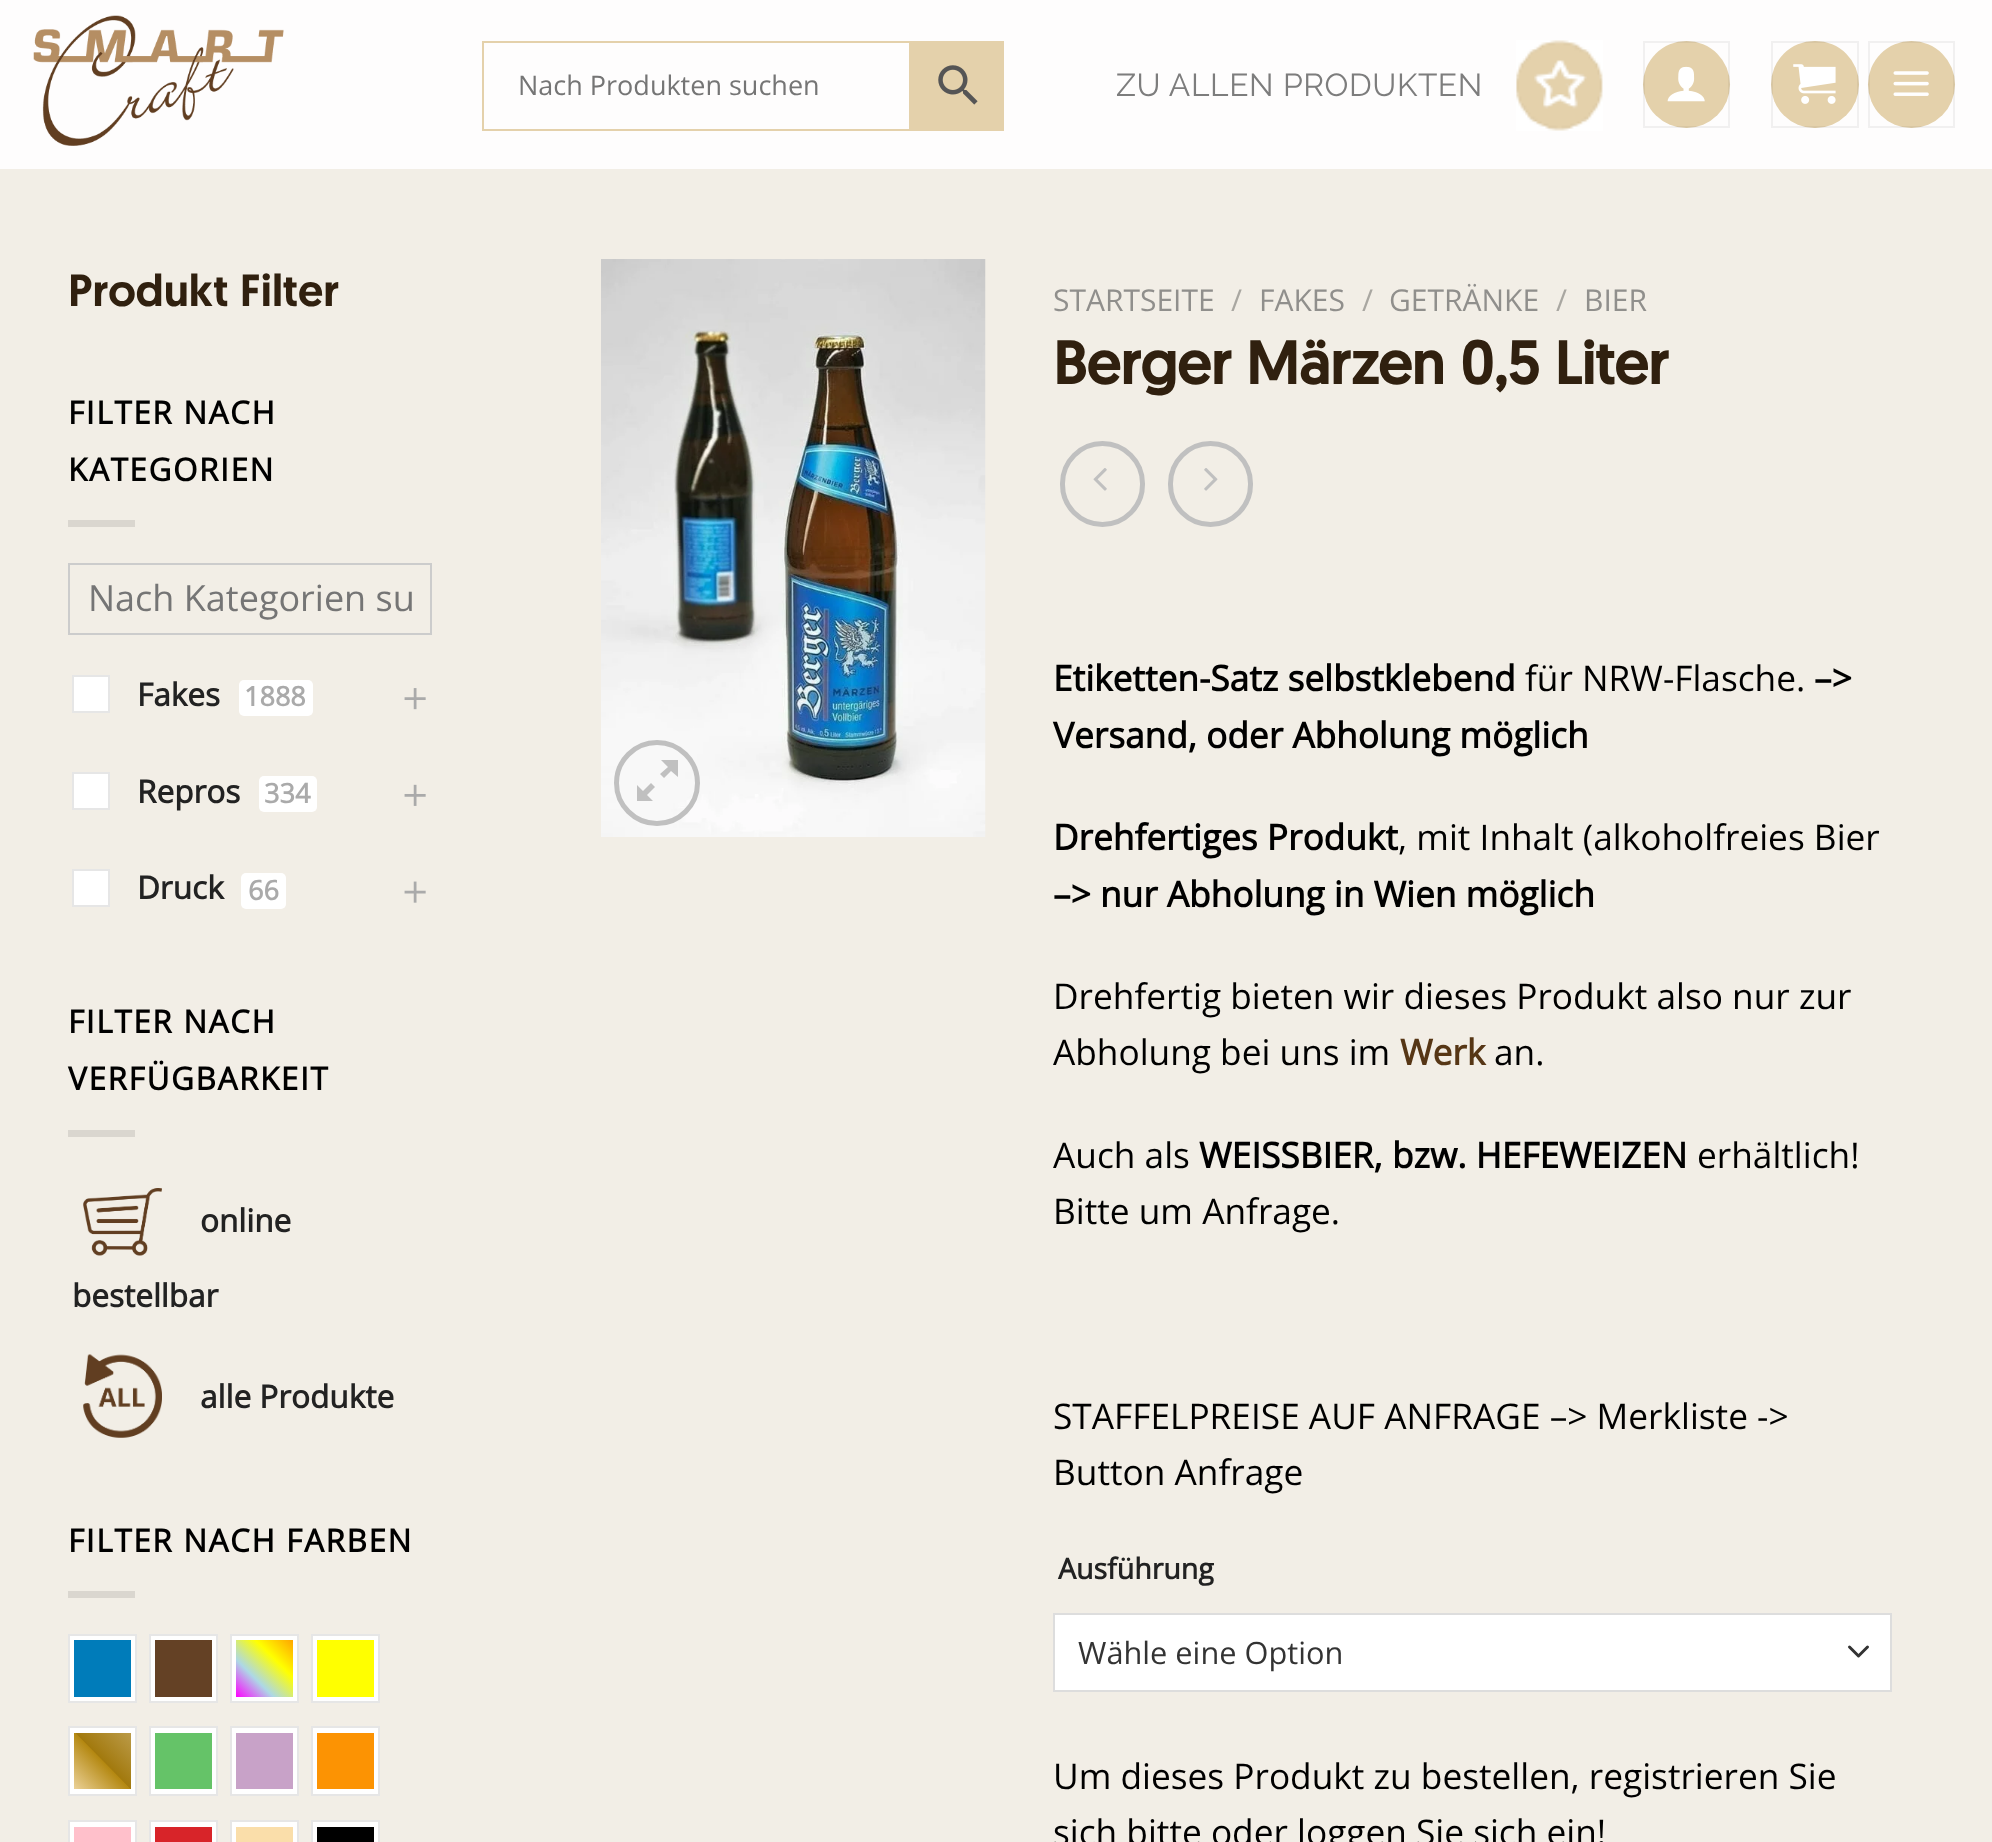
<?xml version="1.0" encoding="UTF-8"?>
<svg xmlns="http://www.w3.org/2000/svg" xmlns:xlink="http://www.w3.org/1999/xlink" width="1992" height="1842">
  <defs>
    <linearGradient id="g1" gradientUnits="userSpaceOnUse" x1="293" y1="1640" x2="236" y2="1697"><stop offset="0" stop-color="#ffa500" /><stop offset="0.33" stop-color="#ffff00" /><stop offset="0.67" stop-color="#add8e6" /><stop offset="1" stop-color="#ff00ff" /></linearGradient>
    <linearGradient id="g2" gradientUnits="userSpaceOnUse" x1="74" y1="1789" x2="131" y2="1733"><stop offset="0" stop-color="#ebd197" /><stop offset="0.5" stop-color="#b48811" /><stop offset="0.51" stop-color="#a2790d" /><stop offset="1" stop-color="#bb9b49" /></linearGradient>
  </defs>
  <rect width="100%" height="100%" fill="#f2eee6" />
  <rect width="1992" height="169" fill="#fefdfd" />
  <image x="33" y="15" width="251" height="131" xlink:href="image1.png" />
  <rect x="483" y="42" width="427" height="88" fill="none" stroke="#e4d1ab" stroke-width="2" />
  <rect x="911" y="41" width="93" height="90" fill="#e4d1ab" />
  <image x="938" y="65" width="40" height="40" xlink:href="image2.png" />
  <image x="1516" y="40" width="87" height="91" xlink:href="image3.png" />
  <circle cx="1686.5" cy="84.5" r="43.5" fill="#e4d1ab" />
  <rect x="1644" y="42" width="85" height="85" fill="none" stroke="#000000" stroke-opacity="0.05" stroke-width="2" />
  <image x="1667" y="66" width="38" height="36" xlink:href="image4.png" />
  <rect x="1771" y="41" width="88" height="87" rx="43.5" fill="#e4d1ab" />
  <rect x="1772" y="42" width="86" height="85" fill="none" stroke="#000000" stroke-opacity="0.05" stroke-width="2" />
  <image x="1793" y="64" width="43" height="40" xlink:href="image5.png" />
  <circle cx="1911.5" cy="84.5" r="43.5" fill="#e4d1ab" />
  <rect x="1869" y="42" width="85" height="85" fill="none" stroke="#000000" stroke-opacity="0.05" stroke-width="2" />
  <image x="1893" y="71" width="36" height="25" xlink:href="image6.png" />
  <rect x="68" y="520" width="67" height="7" fill="#dad6cf" />
  <rect x="69" y="564" width="362" height="70" fill="none" stroke="#cccccc" stroke-width="2" />
  <rect x="73" y="676" width="36" height="36" fill="#ffffff" stroke="#e6e6e6" stroke-width="2" />
  <rect x="239" y="680" width="74" height="36" rx="5" fill="#ffffff" />
  <image x="404" y="688" width="22" height="22" xlink:href="image7.png" />
  <rect x="73" y="773" width="36" height="36" fill="#ffffff" stroke="#e6e6e6" stroke-width="2" />
  <rect x="259" y="776" width="58" height="36" rx="5" fill="#ffffff" />
  <image x="404" y="784" width="22" height="22" xlink:href="image8.png" />
  <rect x="73" y="870" width="36" height="36" fill="#ffffff" stroke="#e6e6e6" stroke-width="2" />
  <rect x="241" y="873" width="45" height="36" rx="5" fill="#ffffff" />
  <image x="404" y="881" width="22" height="22" xlink:href="image9.png" />
  <rect x="68" y="1130" width="67" height="7" fill="#dad6cf" />
  <image x="83" y="1188" width="79" height="68" xlink:href="image10.png" />
  <image x="83" y="1354" width="79" height="84" xlink:href="image11.png" />
  <rect x="68" y="1591" width="67" height="7" fill="#dad6cf" />
  <rect x="69" y="1635" width="67" height="67" fill="#ffffff" stroke="#e6e6e6" stroke-width="2" />
  <rect x="74" y="1640" width="57" height="57" fill="#007cba" />
  <rect x="150" y="1635" width="67" height="67" fill="#ffffff" stroke="#e6e6e6" stroke-width="2" />
  <rect x="155" y="1640" width="57" height="57" fill="#644125" />
  <rect x="231" y="1635" width="67" height="67" fill="#ffffff" stroke="#e6e6e6" stroke-width="2" />
  <rect x="236" y="1640" width="57" height="57" fill="url(#g1)" />
  <rect x="312" y="1635" width="67" height="67" fill="#ffffff" stroke="#e6e6e6" stroke-width="2" />
  <rect x="317" y="1640" width="57" height="57" fill="#ffff00" />
  <rect x="69" y="1727" width="67" height="68" fill="#ffffff" stroke="#e6e6e6" stroke-width="2" />
  <rect x="74" y="1733" width="57" height="56" fill="url(#g2)" />
  <rect x="150" y="1727" width="67" height="68" fill="#ffffff" stroke="#e6e6e6" stroke-width="2" />
  <rect x="155" y="1733" width="57" height="56" fill="#65c368" />
  <rect x="231" y="1727" width="67" height="68" fill="#ffffff" stroke="#e6e6e6" stroke-width="2" />
  <rect x="236" y="1733" width="57" height="56" fill="#c8a2c8" />
  <rect x="312" y="1727" width="67" height="68" fill="#ffffff" stroke="#e6e6e6" stroke-width="2" />
  <rect x="317" y="1733" width="57" height="56" fill="#fc9303" />
  <rect x="69" y="1821" width="67" height="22" fill="#ffffff" stroke="#e6e6e6" stroke-width="2" />
  <rect x="74" y="1827" width="57" height="15" fill="#ffc0cb" />
  <rect x="150" y="1821" width="67" height="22" fill="#ffffff" stroke="#e6e6e6" stroke-width="2" />
  <rect x="155" y="1827" width="57" height="15" fill="#d82429" />
  <rect x="231" y="1821" width="67" height="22" fill="#ffffff" stroke="#e6e6e6" stroke-width="2" />
  <rect x="236" y="1827" width="57" height="15" fill="#fadeaa" />
  <rect x="312" y="1821" width="67" height="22" fill="#ffffff" stroke="#e6e6e6" stroke-width="2" />
  <rect x="317" y="1827" width="57" height="15" fill="#000000" />
  <image x="601" y="259" width="385" height="578" xlink:href="image12.png" />
  <circle cx="657" cy="783" r="40.5" fill="none" stroke="#c0c0c0" stroke-width="5" />
  <path d="M 678 760 v 17 l -7 -6 l -7 7 l -4 -4 l 8 -7 l -7 -7 z m -23 27 l -8 8 l 6 6 h -16 v -16 l 6 6 l 8 -8 z" fill="#c0c0c0" />
  <rect x="1062.5" y="443.5" width="80" height="81" rx="40" fill="none" stroke="#c0c0c0" stroke-width="5" />
  <image x="1093" y="468" width="14" height="23" xlink:href="image13.png" />
  <rect x="1170.5" y="443.5" width="80" height="81" rx="40" fill="none" stroke="#c0c0c0" stroke-width="5" />
  <image x="1204" y="468" width="14" height="23" xlink:href="image14.png" />
  <rect x="1055" y="1615" width="835" height="75" fill="#ffffff" />
  <path d="M 1849.5 1647 l 9 9 l 9 -9" fill="none" stroke="#333333" stroke-width="3" stroke-linecap="round" stroke-linejoin="round" />
  <rect x="1054" y="1614" width="837" height="77" fill="none" stroke="#dddddd" stroke-width="2" />
  <text x="518" y="95" style="font-family: Open Sans; font-size: 27px; fill: #757575">Nach Produkten suchen</text>
  <text x="1116" y="96" style="font-family: Raleway; font-size: 31.75px; font-weight: 100; letter-spacing: 0.6px; fill: #7d7d7d">ZU ALLEN PRODUKTEN</text>
  <text x="68" y="306" style="font-family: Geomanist; font-size: 45px; font-weight: 500; fill: #30200f">Produkt Filter</text>
  <text x="68" y="424" style="font-family: Open Sans; font-size: 31.5px; font-weight: bold; letter-spacing: 1.6px; fill: #000000">FILTER NACH</text>
  <text x="68" y="481" style="font-family: Open Sans; font-size: 31.5px; font-weight: bold; letter-spacing: 1.6px; fill: #000000">KATEGORIEN</text>
  <text x="88" y="611" style="font-family: Open Sans; font-size: 36px; fill: #757575">Nach Kategorien su</text>
  <text x="137" y="706" style="font-family: Open Sans; font-size: 31.5px; font-weight: bold; fill: #222222">Fakes</text>
  <text x="244" y="706" style="font-family: Open Sans; font-size: 27px; font-weight: bold; fill: #aaaaaa">1888</text>
  <text x="137" y="803" style="font-family: Open Sans; font-size: 31.5px; font-weight: bold; fill: #222222">Repros</text>
  <text x="264" y="803" style="font-family: Open Sans; font-size: 27px; font-weight: bold; fill: #aaaaaa">334</text>
  <text x="137" y="899" style="font-family: Open Sans; font-size: 31.5px; font-weight: bold; fill: #222222">Druck</text>
  <text x="248" y="900" style="font-family: Open Sans; font-size: 27px; font-weight: bold; fill: #aaaaaa">66</text>
  <text x="68" y="1033" style="font-family: Open Sans; font-size: 31.5px; font-weight: bold; letter-spacing: 1.6px; fill: #000000">FILTER NACH</text>
  <text x="68" y="1090" style="font-family: Open Sans; font-size: 31.5px; font-weight: bold; letter-spacing: 1.6px; fill: #000000">VERFÜGBARKEIT</text>
  <text x="200" y="1232" style="font-family: Open Sans; font-size: 31.5px; font-weight: bold; fill: #222222">online</text>
  <text x="72" y="1307" style="font-family: Open Sans; font-size: 31.5px; font-weight: bold; fill: #222222">bestellbar</text>
  <text x="200" y="1408" style="font-family: Open Sans; font-size: 31.5px; font-weight: bold; fill: #222222">alle Produkte</text>
  <text x="68" y="1552" style="font-family: Open Sans; font-size: 31.5px; font-weight: bold; letter-spacing: 1.6px; fill: #000000">FILTER NACH FARBEN</text>
  <text x="1053" y="311" style="font-family: Open Sans; font-size: 30px; fill: #908f8c">STARTSEITE</text>
  <text x="1231" y="311" style="font-family: Open Sans; font-size: 30px; fill: #a9a7a1">/</text>
  <text x="1259" y="311" style="font-family: Open Sans; font-size: 30px; fill: #908f8c">FAKES</text>
  <text x="1362" y="311" style="font-family: Open Sans; font-size: 30px; fill: #a9a7a1">/</text>
  <text x="1389" y="311" style="font-family: Open Sans; font-size: 30px; fill: #908f8c">GETRÄNKE</text>
  <text x="1556" y="311" style="font-family: Open Sans; font-size: 30px; fill: #a9a7a1">/</text>
  <text x="1584" y="311" style="font-family: Open Sans; font-size: 30px; fill: #908f8c">BIER</text>
  <text x="1053" y="384" style="font-family: Geomanist; font-size: 60px; font-weight: bold; fill: #30200f">Berger Märzen 0,5 Liter</text>
  <text x="1053" y="691" style="font-family: Open Sans; font-size: 35.25px; font-weight: bold; fill: #000000">Etiketten-Satz selbstklebend</text>
  <text x="1525" y="691" style="font-family: Open Sans; font-size: 35.25px; fill: #000000">für NRW-Flasche.</text>
  <text x="1814" y="691" style="font-family: Open Sans; font-size: 35.25px; font-weight: bold; fill: #000000">–&gt;</text>
  <text x="1053" y="748" style="font-family: Open Sans; font-size: 35.25px; font-weight: bold; fill: #000000">Versand, oder Abholung möglich</text>
  <text x="1053" y="850" style="font-family: Open Sans; font-size: 35.25px; font-weight: bold; fill: #000000">Drehfertiges Produkt</text>
  <text x="1398" y="850" style="font-family: Open Sans; font-size: 35.25px; fill: #000000">, mit Inhalt (alkoholfreies Bier</text>
  <text x="1053" y="907" style="font-family: Open Sans; font-size: 35.25px; font-weight: bold; fill: #000000">–&gt; nur Abholung in Wien möglich</text>
  <text x="1053" y="1009" style="font-family: Open Sans; font-size: 35.25px; fill: #000000">Drehfertig bieten wir dieses Produkt also nur zur</text>
  <text x="1053" y="1065" style="font-family: Open Sans; font-size: 35.25px; fill: #000000">Abholung bei uns im</text>
  <text x="1400" y="1065" style="font-family: Open Sans; font-size: 35.25px; font-weight: bold; fill: #563615">Werk</text>
  <text x="1494" y="1065" style="font-family: Open Sans; font-size: 35.25px; fill: #000000">an.</text>
  <text x="1053" y="1168" style="font-family: Open Sans; font-size: 35.25px; fill: #000000">Auch als</text>
  <text x="1199" y="1168" style="font-family: Open Sans; font-size: 35.25px; font-weight: bold; fill: #000000">WEISSBIER, bzw. HEFEWEIZEN</text>
  <text x="1697" y="1168" style="font-family: Open Sans; font-size: 35.25px; fill: #000000">erhältlich!</text>
  <text x="1053" y="1224" style="font-family: Open Sans; font-size: 35.25px; fill: #000000">Bitte um Anfrage.</text>
  <text x="1053" y="1429" style="font-family: Open Sans; font-size: 35.25px; fill: #000000">STAFFELPREISE AUF ANFRAGE –&gt; Merkliste -&gt;</text>
  <text x="1053" y="1485" style="font-family: Open Sans; font-size: 35.25px; fill: #000000">Button Anfrage</text>
  <text x="1058" y="1579" style="font-family: Open Sans; font-size: 28.5px; font-weight: bold; fill: #222222">Ausführung</text>
  <text x="1078" y="1664" style="font-family: Open Sans; font-size: 30.75px; fill: #333333">Wähle eine Option</text>
  <text x="1053" y="1789" style="font-family: Open Sans; font-size: 35.25px; fill: #000000">Um dieses Produkt zu bestellen, registrieren Sie</text>
  <text x="1053" y="1845" style="font-family: Open Sans; font-size: 35.25px; fill: #000000">sich bitte oder loggen Sie sich ein!</text>
</svg>
